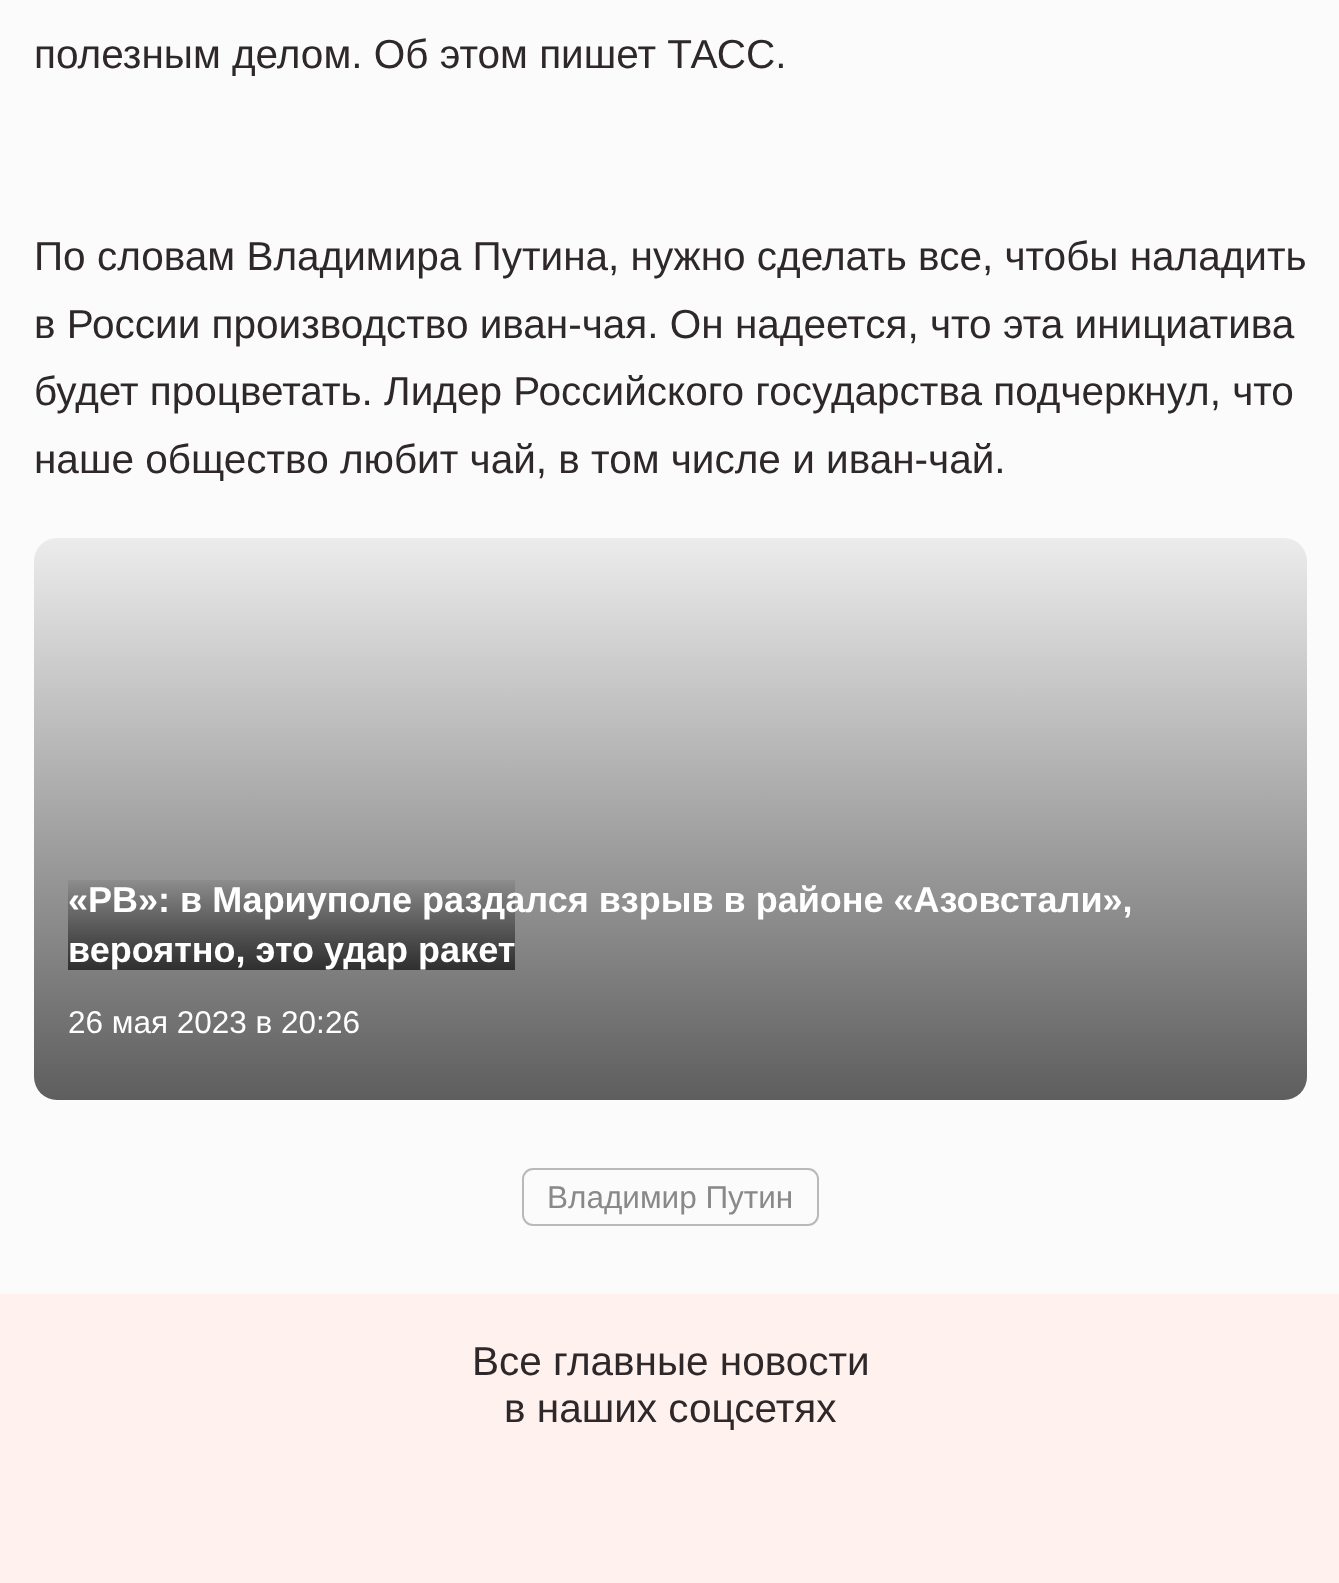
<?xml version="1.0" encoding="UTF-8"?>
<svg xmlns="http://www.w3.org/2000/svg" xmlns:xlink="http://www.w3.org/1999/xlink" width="1339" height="1583">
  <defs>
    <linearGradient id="g1" gradientUnits="userSpaceOnUse" x1="671" y1="1100" x2="671" y2="538"><stop offset="0" stop-color="#5e5e5e" /><stop offset="1" stop-color="#ececec" /></linearGradient>
    <linearGradient id="g2" gradientUnits="userSpaceOnUse" x1="291" y1="970" x2="291" y2="880"><stop offset="0" stop-color="#000000" stop-opacity="0.63" /><stop offset="1" stop-color="#000000" stop-opacity="0.06" /></linearGradient>
  </defs>
  <rect width="100%" height="100%" fill="#fbfbfb" />
  <rect x="34" y="538" width="1273" height="562" rx="23" fill="url(#g1)" />
  <rect x="68" y="880" width="447" height="90" fill="url(#g2)" />
  <rect x="523" y="1169" width="295" height="56" rx="10" fill="none" stroke="#b9b9b9" stroke-width="2" />
  <rect y="1294" width="1339" height="289" fill="#fff2ee" />
  <text x="34" y="68" style="font-family: Liberation Sans; font-size: 40.5px; fill: #2e282a">полезным делом. Об этом пишет ТАСС.</text>
  <text x="34" y="270" style="font-family: Liberation Sans; font-size: 40.5px; fill: #2e282a">По словам Владимира Путина, нужно сделать все, чтобы наладить</text>
  <text x="34" y="338" style="font-family: Liberation Sans; font-size: 40.5px; fill: #2e282a">в России производство иван-чая. Он надеется, что эта инициатива</text>
  <text x="34" y="405" style="font-family: Liberation Sans; font-size: 40.5px; fill: #2e282a">будет процветать. Лидер Российского государства подчеркнул, что</text>
  <text x="34" y="473" style="font-family: Liberation Sans; font-size: 40.5px; fill: #2e282a">наше общество любит чай, в том числе и иван-чай.</text>
  <text x="68" y="912" style="font-family: Liberation Sans; font-size: 36px; font-weight: bold; fill: #ffffff">«РВ»: в Мариуполе раздался взрыв в районе «Азовстали»,</text>
  <text x="68" y="962" style="font-family: Liberation Sans; font-size: 36px; font-weight: bold; fill: #ffffff">вероятно, это удар ракет</text>
  <text x="68" y="1033" style="font-family: Liberation Sans; font-size: 31.5px; fill: #ffffff">26 мая 2023 в 20:26</text>
  <text x="547" y="1208" style="font-family: Liberation Sans; font-size: 31.5px; fill: #898989">Владимир Путин</text>
  <text x="472" y="1375" style="font-family: Liberation Sans; font-size: 40.5px; fill: #2e282a">Все главные новости</text>
  <text x="504" y="1422" style="font-family: Liberation Sans; font-size: 40.5px; fill: #2e282a">в наших соцсетях</text>
</svg>
